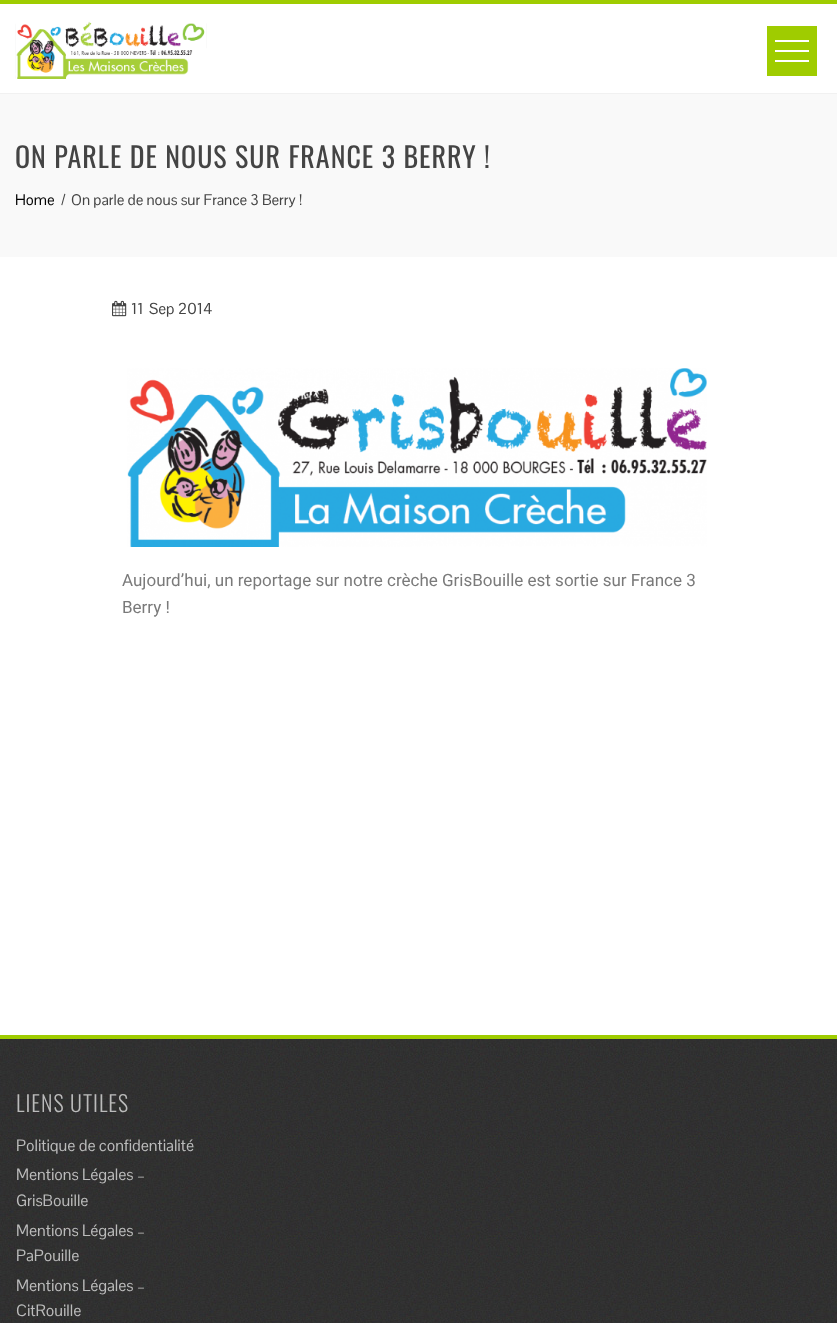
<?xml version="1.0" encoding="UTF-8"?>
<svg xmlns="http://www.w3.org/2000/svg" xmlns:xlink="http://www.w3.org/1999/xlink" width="837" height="1323">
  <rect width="100%" height="100%" fill="#ffffff" />
  <rect width="837" height="4" fill="#9fcc00" />
  <rect y="93" width="837" height="1" fill="#f1f1f1" />
  <image x="15" y="21" width="192" height="58" xlink:href="image1.png" />
  <rect x="767" y="26" width="50" height="50" fill="#9fcc00" />
  <rect x="775" y="40" width="34" height="2" fill="#ffffff" />
  <rect x="775" y="60" width="34" height="2" fill="#ffffff" />
  <rect x="775" y="50" width="34" height="2" fill="#ffffff" />
  <rect y="94" width="837" height="163" fill="#f9f9f9" />
  <image x="112" y="300" width="15" height="17" xlink:href="image2.png" />
  <image x="127" y="368" width="580" height="179" xlink:href="image3.png" />
  <image x="0" y="1039" width="837" height="284" xlink:href="image4.png" />
  <rect y="1035" width="837" height="4" fill="#9fcc00" />
  <text x="15" y="168" style="font-family: Oswald; font-size: 28px; letter-spacing: 1px; fill: #444444">ON PARLE DE NOUS SUR FRANCE 3 BERRY !</text>
  <text x="15" y="205" style="font-family: Pontano Sans; font-size: 15px; fill: #000000">Home</text>
  <text x="61" y="205" style="font-family: Pontano Sans; font-size: 15px; fill: #444444">/</text>
  <text x="71" y="205" style="font-family: Pontano Sans; font-size: 15px; fill: #444444">On parle de nous sur France 3 Berry !</text>
  <text x="131" y="314" style="font-family: Pontano Sans; font-size: 15.5px; fill: #444444">11</text>
  <text x="149" y="314" style="font-family: Pontano Sans; font-size: 15.5px; fill: #444444">Sep 2014</text>
  <text x="122" y="586" style="font-family: Roboto; font-size: 17px; fill: #7a7a7a">Aujourd’hui, un reportage sur notre crèche GrisBouille est sortie sur France 3</text>
  <text x="122" y="613" style="font-family: Roboto; font-size: 17px; fill: #7a7a7a">Berry !</text>
  <text x="16" y="1112" style="font-family: Oswald; font-size: 22px; font-weight: 300; letter-spacing: 1px; fill: #bbbbbb">LIENS UTILES</text>
  <text x="16" y="1151" style="font-family: Pontano Sans; font-size: 16px; fill: #bbbbbb">Politique de confidentialité</text>
  <text x="16" y="1180" style="font-family: Pontano Sans; font-size: 16px; fill: #bbbbbb">Mentions Légales –</text>
  <text x="16" y="1206" style="font-family: Pontano Sans; font-size: 16px; fill: #bbbbbb">GrisBouille</text>
  <text x="16" y="1236" style="font-family: Pontano Sans; font-size: 16px; fill: #bbbbbb">Mentions Légales –</text>
  <text x="16" y="1261" style="font-family: Pontano Sans; font-size: 16px; fill: #bbbbbb">PaPouille</text>
  <text x="16" y="1291" style="font-family: Pontano Sans; font-size: 16px; fill: #bbbbbb">Mentions Légales –</text>
  <text x="16" y="1316" style="font-family: Pontano Sans; font-size: 16px; fill: #bbbbbb">CitRouille</text>
</svg>
